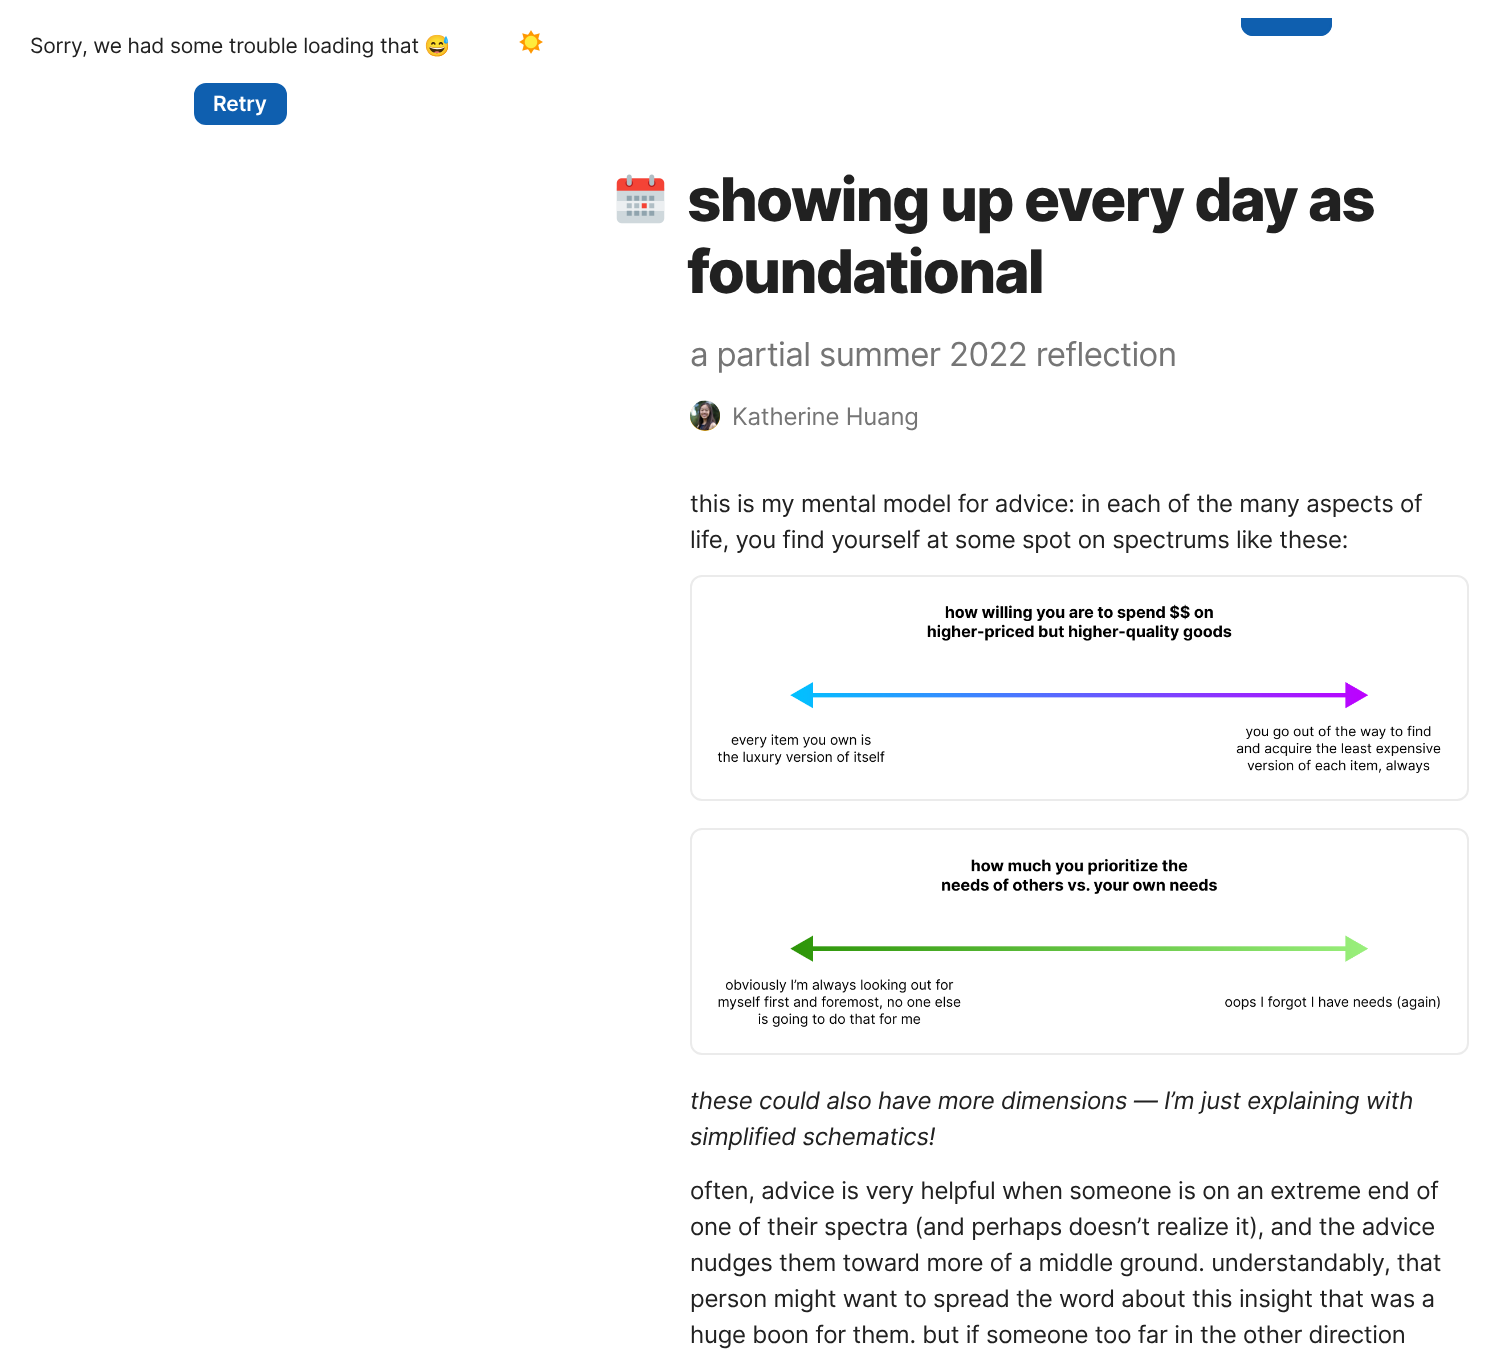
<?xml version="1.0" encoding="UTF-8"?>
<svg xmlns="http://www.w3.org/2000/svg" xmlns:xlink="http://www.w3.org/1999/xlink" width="1492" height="1365">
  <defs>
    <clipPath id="clip1"><rect x="1107" y="18" width="359" height="48" /></clipPath>
  </defs>
  <rect width="100%" height="100%" fill="#ffffff" />
  <rect x="195" y="84" width="91" height="40" rx="11" fill="#0f5faf" stroke="#0f5faf" stroke-width="2" />
  <path d="M 1241 18 h 91 v 6 c 0 6.5 -5.5 12 -12 12 h -67 c -6.5 0 -12 -5.5 -12 -12 z" fill="#0f5faf" />
  <g clip-path="url(#clip1)">
    <rect x="1242" y="-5" width="89" height="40" rx="11" fill="none" stroke="#0f5faf" stroke-width="2" />
  </g>
  <image x="519" y="30" width="24" height="24" xlink:href="image1.png" />
  <image x="616" y="174" width="49" height="50" xlink:href="image2.png" />
  <circle cx="705" cy="416" r="15" fill="#e4a709" />
  <image x="690" y="400" width="30" height="31" xlink:href="image3.png" />
  <circle cx="705" cy="416" r="14" fill="none" stroke="#000000" stroke-opacity="0.08" stroke-width="2" />
  <image x="717" y="604" width="724" height="169" xlink:href="image4.png" />
  <rect x="691" y="576" width="777" height="224" rx="11" fill="none" stroke="#ebebeb" stroke-width="2" />
  <image x="718" y="858" width="722" height="169" xlink:href="image5.png" />
  <rect x="691" y="829" width="777" height="225" rx="11" fill="none" stroke="#ebebeb" stroke-width="2" />
  <text x="30" y="53" style="font-family: Inter; font-size: 21px; letter-spacing: -0.2px; fill: #212121">Sorry, we had some trouble loading that</text>
  <text x="424" y="53" style="font-family: Noto Color Emoji; font-size: 21px; letter-spacing: -0.2px; fill: #212121">😅</text>
  <text x="213" y="111" style="font-family: Inter; font-size: 21px; font-weight: 600; letter-spacing: -0.2px; fill: #ffffff">Retry</text>
  <text x="687" y="221" style="font-family: Inter; font-size: 60px; font-weight: 800; letter-spacing: -1.8px; fill: #212121">showing up every day as</text>
  <text x="687" y="293" style="font-family: Inter; font-size: 60px; font-weight: 800; letter-spacing: -1.8px; fill: #212121">foundational</text>
  <text x="690" y="366" style="font-family: Inter; font-size: 33px; letter-spacing: -0.65px; fill: #757575">a partial summer 2022 reflection</text>
  <text x="732" y="425" style="font-family: Inter; font-size: 24px; letter-spacing: -0.2px; fill: #757575">Katherine Huang</text>
  <text x="690" y="512" style="font-family: Inter; font-size: 24px; letter-spacing: -0.25px; fill: #212121">this is my mental model for advice: in each of the many aspects of</text>
  <text x="690" y="548" style="font-family: Inter; font-size: 24px; letter-spacing: -0.25px; fill: #212121">life, you find yourself at some spot on spectrums like these:</text>
  <text x="690" y="1109" style="font-family: Inter; font-size: 24px; font-style: italic; letter-spacing: -0.25px; fill: #212121">these could also have more dimensions — I’m just explaining with</text>
  <text x="690" y="1145" style="font-family: Inter; font-size: 24px; font-style: italic; letter-spacing: -0.25px; fill: #212121">simplified schematics!</text>
  <text x="690" y="1199" style="font-family: Inter; font-size: 24px; letter-spacing: -0.25px; fill: #212121">often, advice is very helpful when someone is on an extreme end of</text>
  <text x="690" y="1235" style="font-family: Inter; font-size: 24px; letter-spacing: -0.25px; fill: #212121">one of their spectra (and perhaps doesn’t realize it), and the advice</text>
  <text x="690" y="1271" style="font-family: Inter; font-size: 24px; letter-spacing: -0.25px; fill: #212121">nudges them toward more of a middle ground. understandably, that</text>
  <text x="690" y="1307" style="font-family: Inter; font-size: 24px; letter-spacing: -0.25px; fill: #212121">person might want to spread the word about this insight that was a</text>
  <text x="690" y="1343" style="font-family: Inter; font-size: 24px; letter-spacing: -0.25px; fill: #212121">huge boon for them. but if someone too far in the other direction</text>
</svg>
